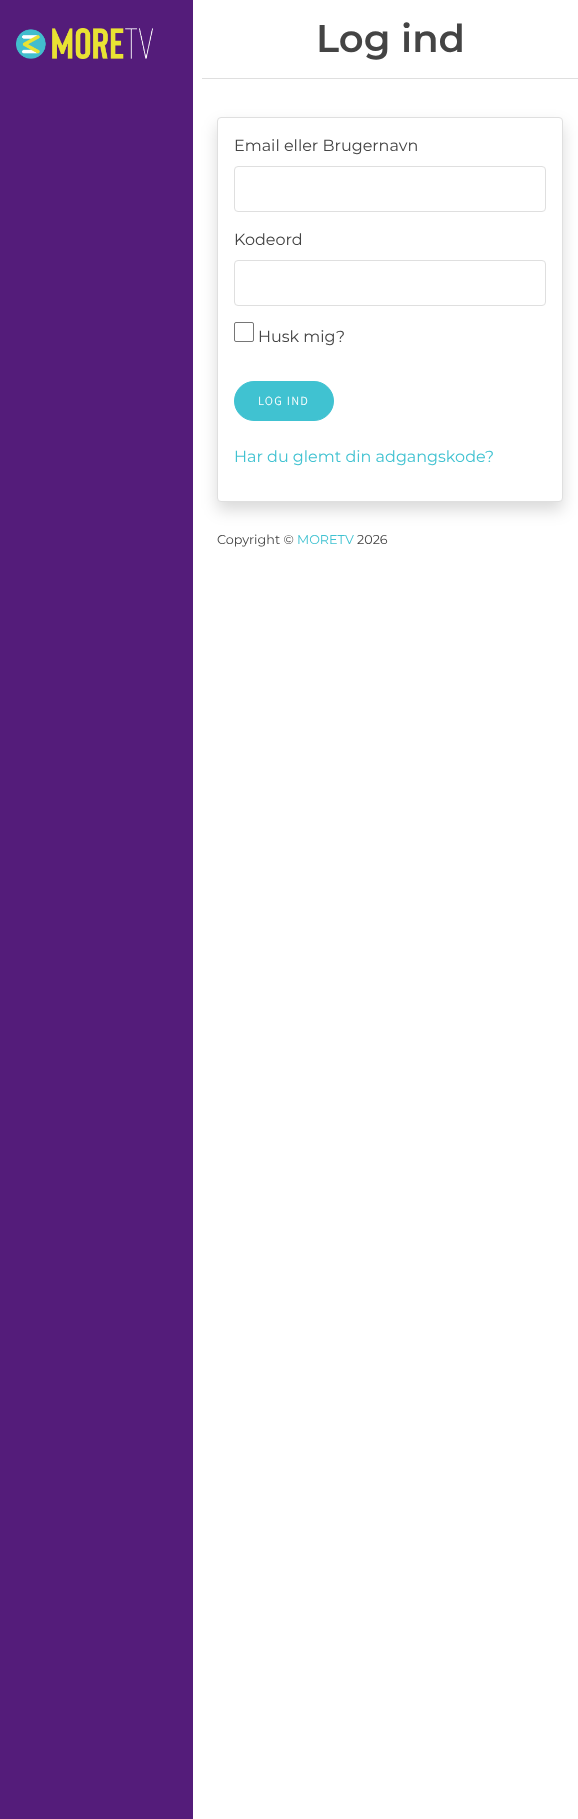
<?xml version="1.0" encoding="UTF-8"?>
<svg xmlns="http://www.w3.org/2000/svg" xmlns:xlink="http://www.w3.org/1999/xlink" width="578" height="1819">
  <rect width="100%" height="100%" fill="#ffffff" />
  <rect x="217" y="125" width="346" height="385" rx="4" fill="#000000" fill-opacity="0.15" filter="blur(8px)" />
  <rect width="193" height="1819" fill="#541c7a" />
  <image x="16" y="28" width="137" height="31" xlink:href="image1.png" />
  <rect x="202" y="78" width="376" height="1" fill="#dfdfdf" />
  <rect x="217.5" y="117.5" width="345" height="384" rx="3.5" fill="#ffffff" stroke="#dfdfdf" />
  <rect x="234.5" y="166.5" width="311" height="45" rx="3.5" fill="none" stroke="#dfdfdf" />
  <rect x="234.5" y="260.5" width="311" height="45" rx="3.5" fill="none" stroke="#dfdfdf" />
  <rect x="234.5" y="322.5" width="19" height="19" rx="1.5" fill="none" stroke="#767676" />
  <rect x="234.5" y="381.5" width="99" height="39" rx="19.5" fill="#40c2d1" stroke="#40c2d1" />
  <text x="316" y="52" style="font-family: Montserrat; font-size: 38.5px; font-weight: 600; fill: #444444">Log ind</text>
  <text x="234" y="151" style="font-family: Montserrat; font-size: 16px; fill: #444444">Email eller Brugernavn</text>
  <text x="234" y="245" style="font-family: Montserrat; font-size: 16px; fill: #444444">Kodeord</text>
  <text x="258" y="342" style="font-family: Montserrat; font-size: 16px; fill: #444444">Husk mig?</text>
  <text x="258" y="405" style="font-family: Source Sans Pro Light; font-size: 12px; font-weight: bold; letter-spacing: 1.5px; fill: #ffffff">LOG IND</text>
  <text x="234" y="462" style="font-family: Montserrat; font-size: 16px; fill: #40c2d1">Har du glemt din adgangskode?</text>
  <text x="217" y="544" style="font-family: Montserrat; font-size: 12.75px; fill: #444444">Copyright ©</text>
  <text x="297" y="544" style="font-family: Montserrat; font-size: 12.75px; fill: #40c2d1">MORETV</text>
  <text x="357" y="544" style="font-family: Montserrat; font-size: 12.75px; fill: #444444">2026</text>
</svg>
